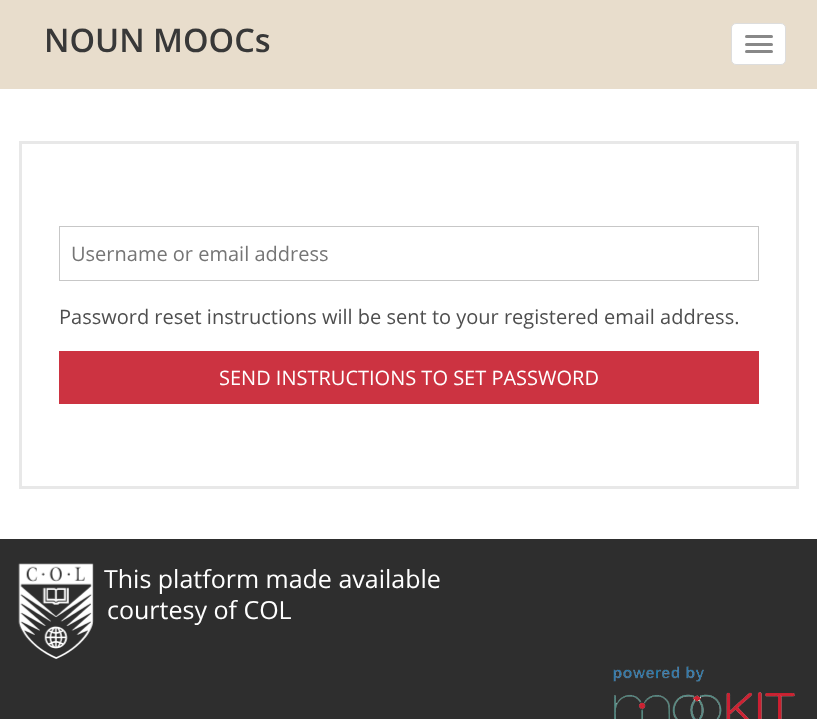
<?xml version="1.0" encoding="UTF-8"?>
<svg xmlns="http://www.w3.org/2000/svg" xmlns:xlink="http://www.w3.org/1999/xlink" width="817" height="719">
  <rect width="100%" height="100%" fill="#ffffff" />
  <rect width="817" height="89" fill="#e8ddcc" />
  <rect x="731.5" y="23.5" width="54" height="41" rx="4.5" fill="#ffffff" stroke="#dddddd" />
  <rect x="745" y="35" width="28" height="3" rx="1.5" fill="#888888" />
  <rect x="745" y="43" width="28" height="3" rx="1.5" fill="#888888" />
  <rect x="745" y="50" width="28" height="3" rx="1.5" fill="#888888" />
  <rect x="20.5" y="142.5" width="777" height="345" fill="none" stroke="#e8e8e8" stroke-width="3" />
  <rect x="59.5" y="226.5" width="699" height="54" fill="none" stroke="#c7c7c7" />
  <rect x="59" y="351" width="700" height="53" fill="#cc3341" />
  <rect y="539" width="817" height="180" fill="#2e2e2e" />
  <image x="18" y="563" width="76" height="96" xlink:href="image1.png" />
  <image x="613" y="666" width="182" height="53" xlink:href="image2.png" />
  <text x="44" y="52" style="font-family: Open Sans; font-size: 32.5px; font-weight: 600; fill: #383838">NOUN MOOCs</text>
  <text x="71" y="261" style="font-family: Open Sans; font-size: 20px; fill: #757575">Username or email address</text>
  <text x="59" y="324" style="font-family: Open Sans; font-size: 20px; fill: #4e4e4e">Password reset instructions will be sent to your registered email address.</text>
  <text x="219" y="385" style="font-family: Open Sans; font-size: 20px; fill: #ffffff">SEND INSTRUCTIONS TO SET PASSWORD</text>
  <text x="104" y="588" style="font-family: Open Sans; font-size: 25px; fill: #ffffff">This platform made available</text>
  <text x="107" y="619" style="font-family: Open Sans; font-size: 25px; fill: #ffffff">courtesy of COL</text>
</svg>
